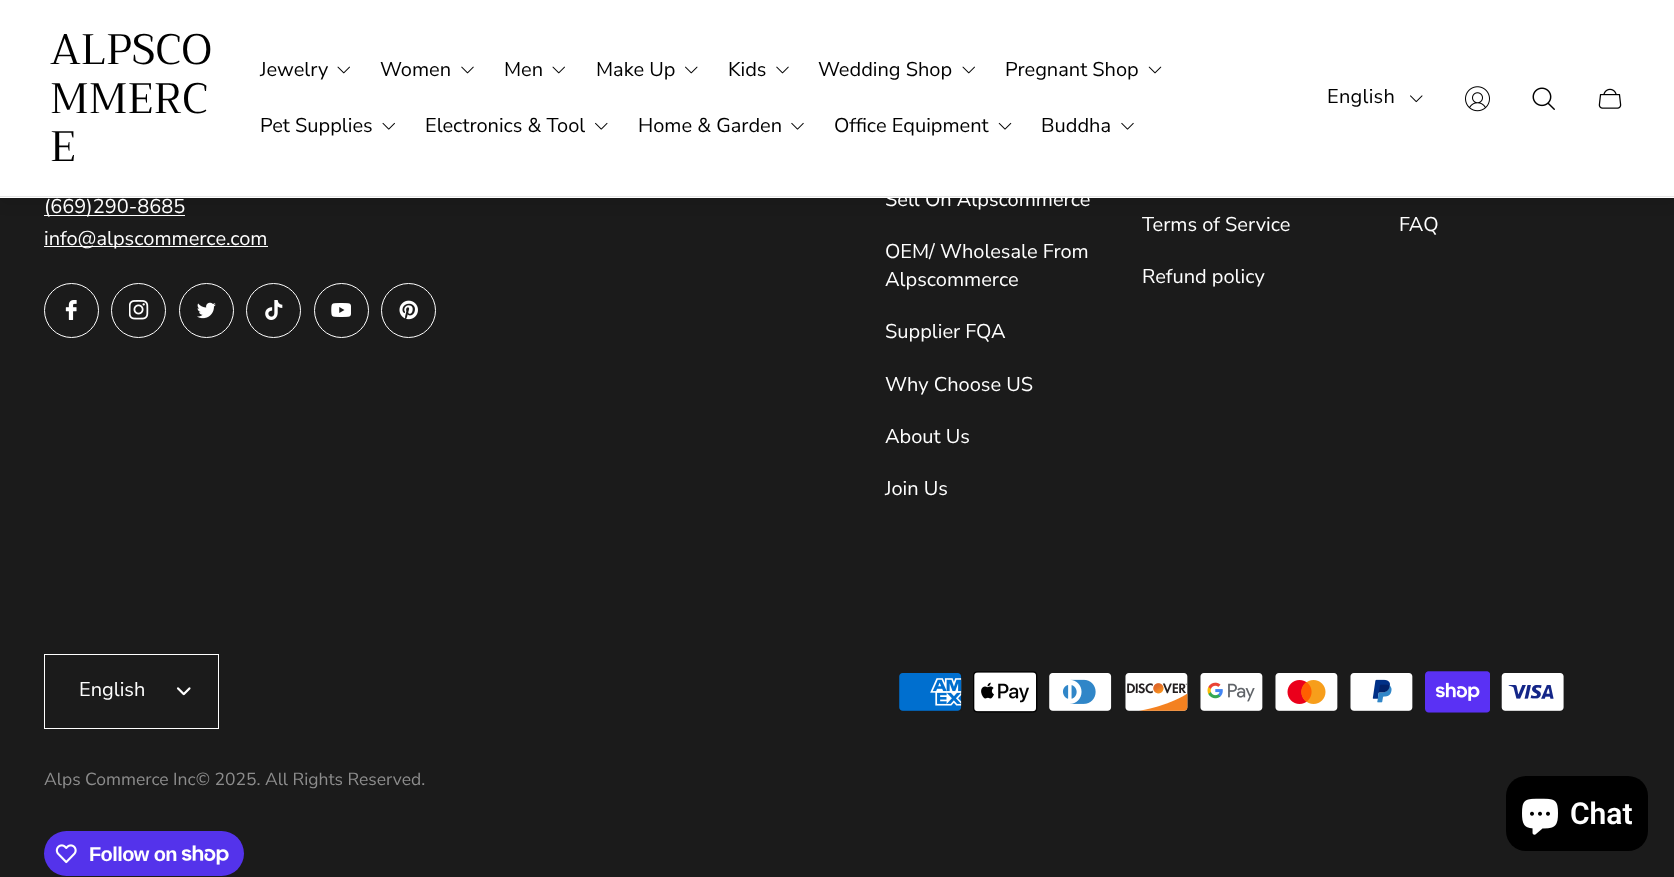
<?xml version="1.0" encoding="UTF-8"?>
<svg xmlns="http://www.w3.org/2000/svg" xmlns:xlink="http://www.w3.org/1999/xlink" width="1674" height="877">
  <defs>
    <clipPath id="clip1"><path d="M 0 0 h 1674 v 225 h -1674 z m 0 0 h 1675 v 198 h -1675 z" clip-rule="evenodd" /></clipPath>
  </defs>
  <rect width="100%" height="100%" fill="#1b1b1b" />
  <rect width="1674" height="198" fill="#ffffff" />
  <rect x="44" y="215" width="141" height="1" fill="#ffffff" />
  <g clip-path="url(#clip1)">
    <rect y="5" width="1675" height="198" fill="#000000" fill-opacity="0.1" filter="blur(7px)" />
  </g>
  <image x="337" y="66" width="13" height="8" xlink:href="image1.png" />
  <image x="461" y="66" width="13" height="8" xlink:href="image2.png" />
  <image x="552" y="66" width="13" height="8" xlink:href="image1.png" />
  <image x="685" y="66" width="13" height="8" xlink:href="image3.png" />
  <image x="776" y="66" width="13" height="8" xlink:href="image2.png" />
  <image x="962" y="66" width="13" height="8" xlink:href="image1.png" />
  <image x="1148" y="66" width="14" height="8" xlink:href="image4.png" />
  <image x="382" y="122" width="13" height="8" xlink:href="image5.png" />
  <image x="595" y="122" width="13" height="8" xlink:href="image6.png" />
  <image x="791" y="122" width="13" height="8" xlink:href="image7.png" />
  <image x="998" y="122" width="14" height="8" xlink:href="image8.png" />
  <image x="1121" y="122" width="13" height="8" xlink:href="image7.png" />
  <image x="1410" y="95" width="13" height="8" xlink:href="image9.png" />
  <image x="1465" y="86" width="25" height="26" xlink:href="image10.png" />
  <image x="1532" y="87" width="23" height="23" xlink:href="image11.png" />
  <image x="1598" y="88" width="24" height="21" xlink:href="image12.png" />
  <rect x="44" y="246" width="224" height="1" fill="#ffffff" />
  <circle cx="71.5" cy="310.5" r="27" fill="none" stroke="#ffffff" />
  <image x="65" y="300" width="12" height="20" xlink:href="image13.png" />
  <circle cx="138.5" cy="310.5" r="27" fill="none" stroke="#ffffff" />
  <image x="129" y="300" width="20" height="20" xlink:href="image14.png" />
  <circle cx="206.5" cy="310.5" r="27" fill="none" stroke="#ffffff" />
  <image x="197" y="302" width="19" height="17" xlink:href="image15.png" />
  <circle cx="273.5" cy="310.5" r="27" fill="none" stroke="#ffffff" />
  <image x="265" y="300" width="18" height="20" xlink:href="image16.png" />
  <circle cx="341.5" cy="310.5" r="27" fill="none" stroke="#ffffff" />
  <image x="331" y="303" width="20" height="14" xlink:href="image17.png" />
  <circle cx="408.5" cy="310.5" r="27" fill="none" stroke="#ffffff" />
  <image x="399" y="300" width="19" height="20" xlink:href="image18.png" />
  <rect x="44.5" y="654.5" width="174" height="74" fill="none" stroke="#ffffff" />
  <image x="176" y="687" width="15" height="9" xlink:href="image19.png" />
  <image x="899" y="673" width="63" height="38" xlink:href="image20.png" />
  <image x="973" y="671" width="65" height="42" xlink:href="image21.png" />
  <image x="1049" y="673" width="63" height="38" xlink:href="image22.png" />
  <image x="1125" y="673" width="63" height="38" xlink:href="image23.png" />
  <image x="1200" y="673" width="63" height="38" xlink:href="image24.png" />
  <image x="1275" y="673" width="63" height="38" xlink:href="image25.png" />
  <image x="1350" y="673" width="63" height="38" xlink:href="image26.png" />
  <image x="1425" y="671" width="65" height="42" xlink:href="image27.png" />
  <image x="1501" y="673" width="63" height="38" xlink:href="image28.png" />
  <rect x="44" y="831" width="200" height="45" rx="22.5" fill="#5433eb" />
  <image x="55" y="844" width="22" height="20" xlink:href="image29.png" />
  <image x="181" y="845" width="48" height="20" xlink:href="image30.png" />
  <rect x="1506" y="776" width="142" height="75" rx="20" fill="#000000" />
  <image x="1522" y="798" width="36" height="37" xlink:href="image31.png" />
  <text x="50" y="64" style="font-family: Trirong; font-size: 42.5px; fill: #000000">ALPSCO</text>
  <text x="50" y="113" style="font-family: Trirong; font-size: 42.5px; fill: #000000">MMERC</text>
  <text x="50" y="161" style="font-family: Trirong; font-size: 42.5px; fill: #000000">E</text>
  <text x="260" y="76" style="font-family: Nunito Sans; font-size: 20px; fill: #000000">Jewelry</text>
  <text x="380" y="76" style="font-family: Nunito Sans; font-size: 20px; fill: #000000">Women</text>
  <text x="504" y="76" style="font-family: Nunito Sans; font-size: 20px; fill: #000000">Men</text>
  <text x="596" y="76" style="font-family: Nunito Sans; font-size: 20px; fill: #000000">Make Up</text>
  <text x="728" y="76" style="font-family: Nunito Sans; font-size: 20px; fill: #000000">Kids</text>
  <text x="818" y="76" style="font-family: Nunito Sans; font-size: 20px; fill: #000000">Wedding Shop</text>
  <text x="1005" y="76" style="font-family: Nunito Sans; font-size: 20px; fill: #000000">Pregnant Shop</text>
  <text x="260" y="132" style="font-family: Nunito Sans; font-size: 20px; fill: #000000">Pet Supplies</text>
  <text x="425" y="132" style="font-family: Nunito Sans; font-size: 20px; fill: #000000">Electronics &amp; Tool</text>
  <text x="638" y="132" style="font-family: Nunito Sans; font-size: 20px; fill: #000000">Home &amp; Garden</text>
  <text x="834" y="132" style="font-family: Nunito Sans; font-size: 20px; fill: #000000">Office Equipment</text>
  <text x="1041" y="132" style="font-family: Nunito Sans; font-size: 20px; fill: #000000">Buddha</text>
  <text x="1327" y="103" style="font-family: Nunito Sans; font-size: 20px; letter-spacing: 0.25px; fill: #000000">English</text>
  <text x="44" y="213" style="font-family: Nunito Sans; font-size: 20px; fill: #ffffff">(669)290-8685</text>
  <text x="44" y="245" style="font-family: Nunito Sans; font-size: 20px; fill: #ffffff">info@alpscommerce.com</text>
  <text x="885" y="206" style="font-family: Nunito Sans; font-size: 20px; fill: #ffffff">Sell On Alpscommerce</text>
  <rect y="196" width="1674" height="1" fill="#e6e6e6" />
  <text x="885" y="258" style="font-family: Nunito Sans; font-size: 20px; fill: #ffffff">OEM/ Wholesale From</text>
  <text x="885" y="286" style="font-family: Nunito Sans; font-size: 20px; fill: #ffffff">Alpscommerce</text>
  <text x="885" y="338" style="font-family: Nunito Sans; font-size: 20px; fill: #ffffff">Supplier FQA</text>
  <text x="885" y="391" style="font-family: Nunito Sans; font-size: 20px; fill: #ffffff">Why Choose US</text>
  <text x="885" y="443" style="font-family: Nunito Sans; font-size: 20px; fill: #ffffff">About Us</text>
  <text x="885" y="495" style="font-family: Nunito Sans; font-size: 20px; fill: #ffffff">Join Us</text>
  <text x="1142" y="231" style="font-family: Nunito Sans; font-size: 20px; fill: #ffffff">Terms of Service</text>
  <text x="1142" y="283" style="font-family: Nunito Sans; font-size: 20px; fill: #ffffff">Refund policy</text>
  <text x="1399" y="231" style="font-family: Nunito Sans; font-size: 20px; fill: #ffffff">FAQ</text>
  <text x="79" y="696" style="font-family: Nunito Sans; font-size: 20px; fill: #ffffff">English</text>
  <text x="44" y="785" style="font-family: Nunito Sans; font-size: 17.5px; fill: #8d8d8d">Alps Commerce Inc© 2025. All Rights Reserved.</text>
  <text x="89" y="861" style="font-family: Liberation Sans; font-size: 20px; font-weight: bold; letter-spacing: -0.6px; fill: #ffffff">Follow on</text>
  <text x="1570" y="824" style="font-family: Roboto; font-size: 30px; font-weight: 600; fill: #ffffff">Chat</text>
</svg>
